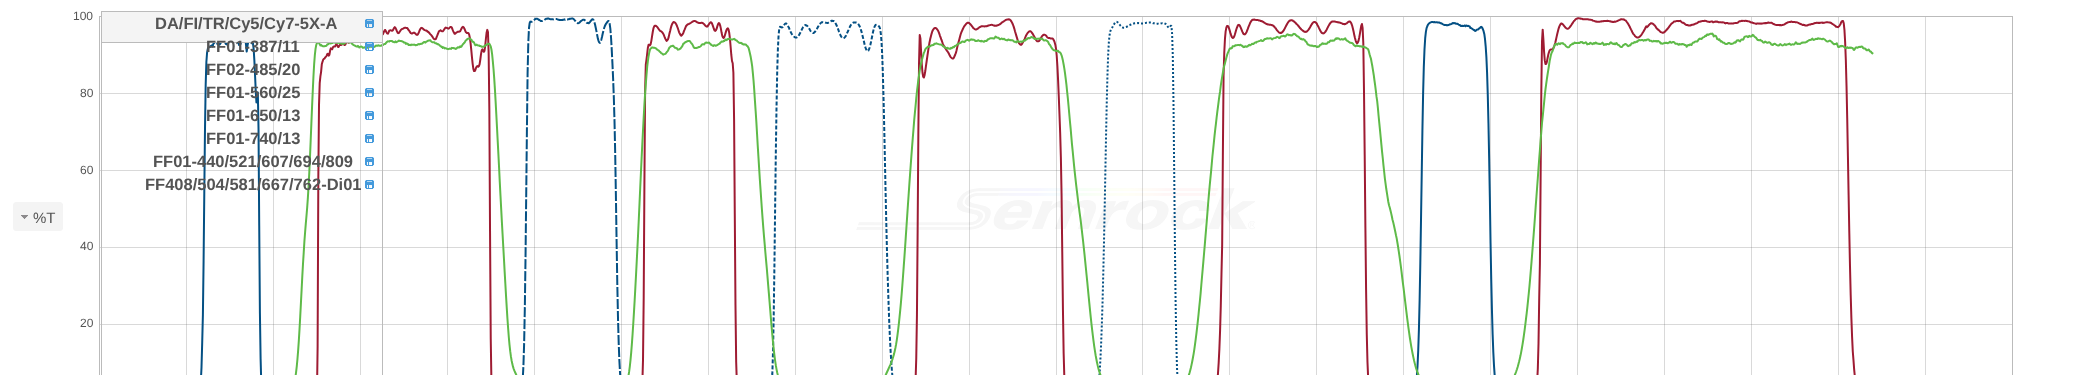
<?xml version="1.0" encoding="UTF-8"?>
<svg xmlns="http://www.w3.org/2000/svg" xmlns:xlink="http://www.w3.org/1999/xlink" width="2076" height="375">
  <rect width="100%" height="100%" fill="#ffffff" />
  <rect x="13.5" y="202.5" width="49" height="28" rx="2.5" fill="#f4f4f4" stroke="#f4f4f4" />
  <image x="21" y="215" width="7" height="4" xlink:href="image1.png" />
  <image x="856" y="188" width="399" height="42" xlink:href="image3.png" />
  <image x="99" y="16" width="1914" height="359" xlink:href="image2.png" />
  <rect x="101.5" y="11.5" width="281" height="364" fill="none" stroke="#bbbbbb" />
  <rect x="102" y="12" width="280" height="30" fill="#f4f4f4" />
  <rect x="102" y="42" width="280" height="1" fill="#bbbbbb" />
  <image x="365" y="19" width="9" height="9" xlink:href="image4.png" />
  <image x="365" y="42" width="9" height="9" xlink:href="image5.png" />
  <image x="365" y="65" width="9" height="9" xlink:href="image6.png" />
  <image x="365" y="88" width="9" height="9" xlink:href="image7.png" />
  <image x="365" y="111" width="9" height="9" xlink:href="image6.png" />
  <image x="365" y="134" width="9" height="9" xlink:href="image6.png" />
  <image x="365" y="157" width="9" height="9" xlink:href="image6.png" />
  <image x="365" y="180" width="9" height="9" xlink:href="image6.png" />
  <text x="33" y="223" style="font-family: Liberation Sans; font-size: 15px; fill: #545454">%T</text>
  <text x="73" y="20" style="font-family: Liberation Sans; font-size: 12px; fill: #545454">100</text>
  <text x="80" y="97" style="font-family: Liberation Sans; font-size: 12px; fill: #545454">80</text>
  <text x="80" y="174" style="font-family: Liberation Sans; font-size: 12px; fill: #545454">60</text>
  <text x="80" y="250" style="font-family: Liberation Sans; font-size: 12px; fill: #545454">40</text>
  <text x="80" y="327" style="font-family: Liberation Sans; font-size: 12px; fill: #545454">20</text>
  <text x="155" y="29" style="font-family: Liberation Sans; font-size: 16.5px; font-weight: bold; fill: #545454">DA/FI/TR/Cy5/Cy7-5X-A</text>
  <text x="206" y="52" style="font-family: Liberation Sans; font-size: 16.5px; font-weight: bold; fill: #545454">FF01-387/11</text>
  <text x="206" y="75" style="font-family: Liberation Sans; font-size: 16.5px; font-weight: bold; fill: #545454">FF02-485/20</text>
  <text x="206" y="98" style="font-family: Liberation Sans; font-size: 16.5px; font-weight: bold; fill: #545454">FF01-560/25</text>
  <text x="206" y="121" style="font-family: Liberation Sans; font-size: 16.5px; font-weight: bold; fill: #545454">FF01-650/13</text>
  <text x="206" y="144" style="font-family: Liberation Sans; font-size: 16.5px; font-weight: bold; fill: #545454">FF01-740/13</text>
  <text x="153" y="167" style="font-family: Liberation Sans; font-size: 16.5px; font-weight: bold; fill: #545454">FF01-440/521/607/694/809</text>
  <text x="145" y="190" style="font-family: Liberation Sans; font-size: 16.5px; font-weight: bold; fill: #545454">FF408/504/581/667/762-Di01</text>
</svg>
